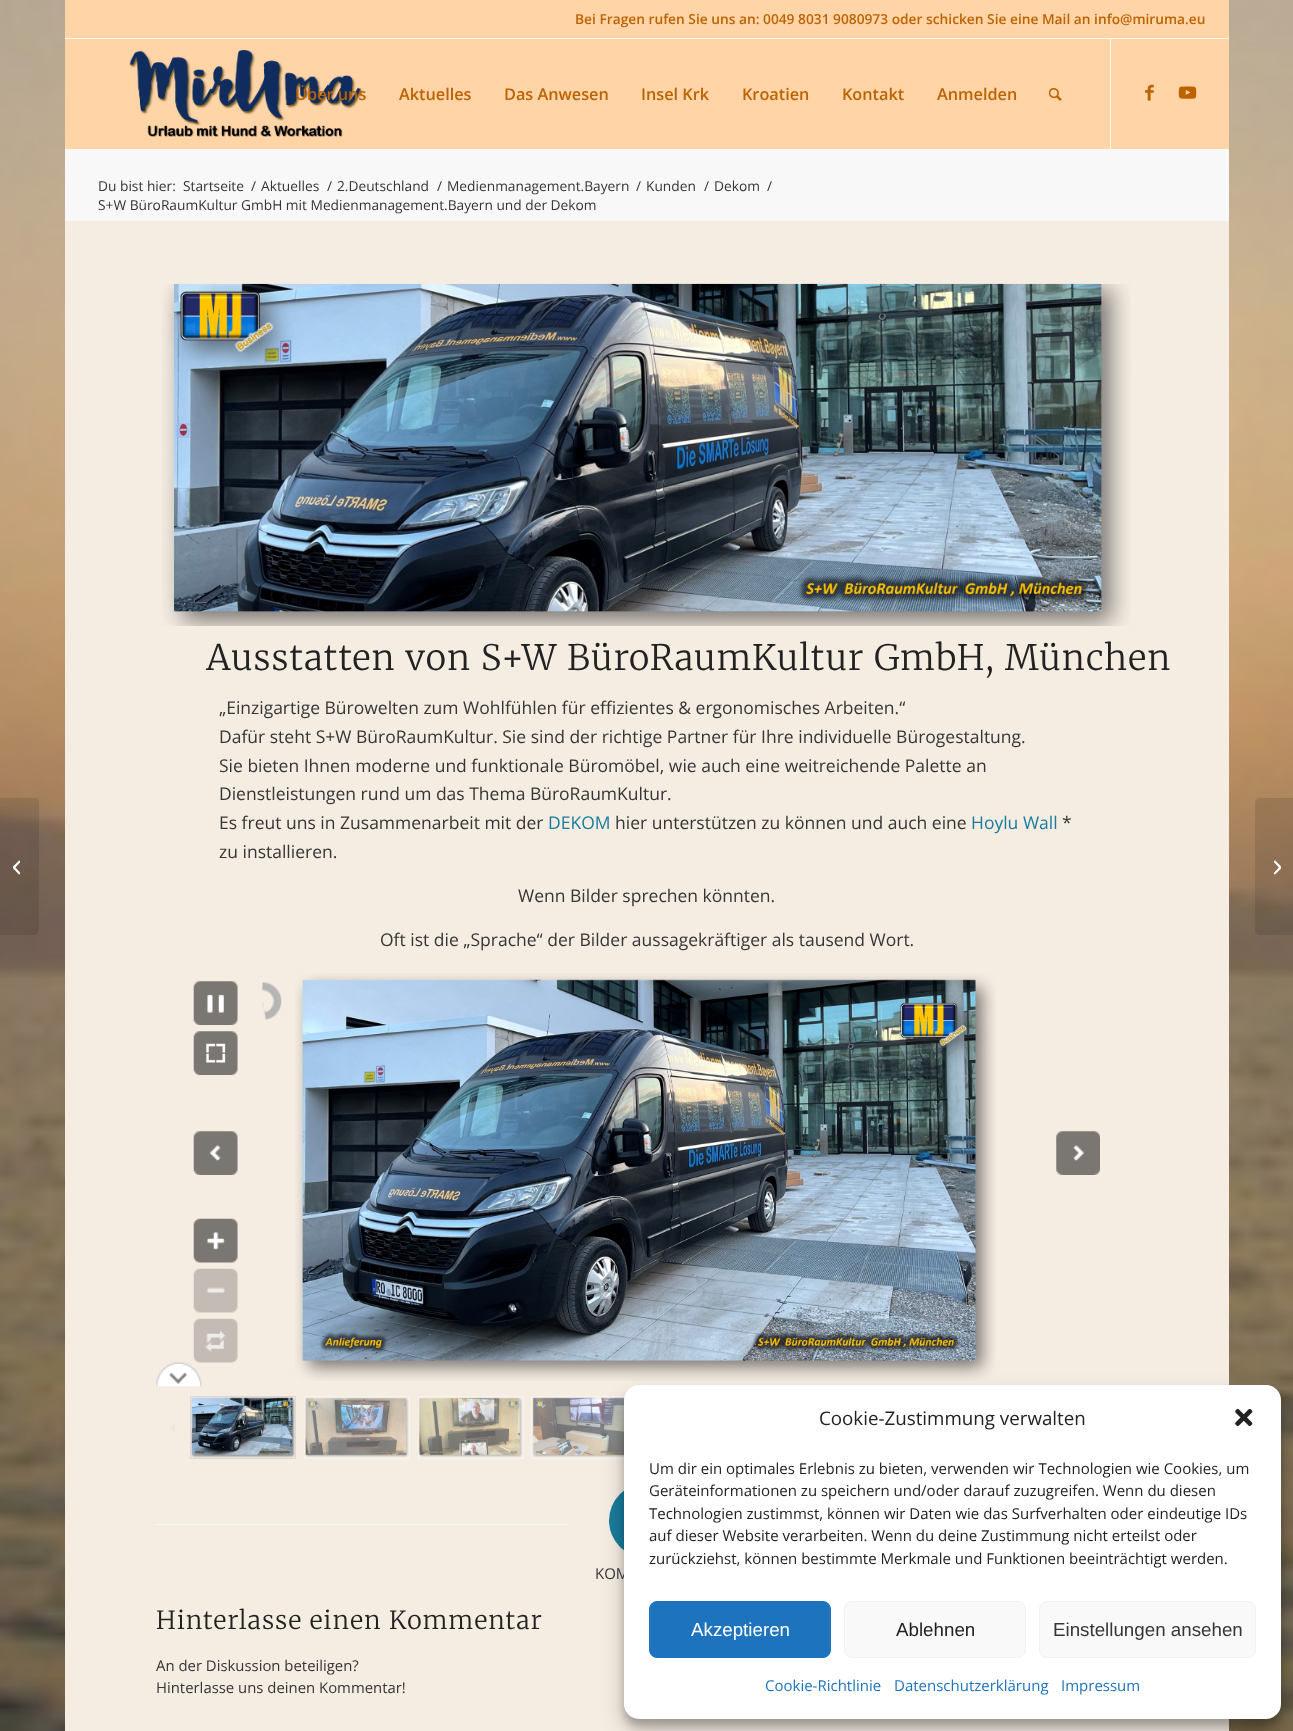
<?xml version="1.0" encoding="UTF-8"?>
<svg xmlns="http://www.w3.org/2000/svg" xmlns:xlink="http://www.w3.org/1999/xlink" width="1293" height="1731">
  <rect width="100%" height="100%" fill="#ffffff" />
  <image x="0" y="0" width="1293" height="1731" xlink:href="image1.png" />
  <rect x="65" width="1164" height="38" fill="#ffd5a8" />
  <rect x="65" y="38" width="1164" height="1" fill="#f8f8f8" />
  <rect x="65" y="39" width="1164" height="110" fill="#ffd5a8" />
  <image x="129" y="50" width="234" height="87" xlink:href="image2.png" />
  <rect x="1110" y="39" width="1" height="110" fill="#f8f8f8" />
  <image x="1049" y="87" width="13" height="14" xlink:href="image3.png" />
  <image x="1145" y="84" width="9" height="17" xlink:href="image4.png" />
  <image x="1178" y="86" width="19" height="13" xlink:href="image5.png" />
  <path d="M 0 798 h 34 c 3 0 5 2 5 5 v 127 c 0 3 -2 5 -5 5 h -34 z" fill="#000000" fill-opacity="0.1" />
  <image x="13" y="860" width="7" height="15" xlink:href="image6.png" />
  <rect x="65" y="149" width="1164" height="72" fill="#f8f8f8" />
  <rect x="65" y="221" width="1164" height="1510" fill="#f5ece2" />
  <image x="162" y="283" width="969" height="343" xlink:href="image7.png" />
  <image x="193" y="981" width="45" height="44" xlink:href="image8.png" />
  <image x="262" y="982" width="20" height="38" xlink:href="image9.png" />
  <image x="295" y="973" width="701" height="408" xlink:href="image10.png" />
  <image x="193" y="1031" width="45" height="44" xlink:href="image11.png" />
  <image x="193" y="1131" width="45" height="44" xlink:href="image12.png" />
  <image x="1056" y="1131" width="44" height="44" xlink:href="image13.png" />
  <image x="193" y="1218" width="45" height="45" xlink:href="image14.png" />
  <image x="193" y="1268" width="45" height="45" xlink:href="image15.png" />
  <image x="193" y="1318" width="45" height="45" xlink:href="image16.png" />
  <image x="156" y="1362" width="46" height="25" xlink:href="image17.png" />
  <image x="170" y="1424" width="5" height="9" xlink:href="image18.png" />
  <image x="191" y="1397" width="104" height="61" xlink:href="image19.png" />
  <rect x="190.5" y="1396.5" width="105" height="62" fill="none" stroke="#d9d9d9" />
  <image x="304" y="1397" width="105" height="61" xlink:href="image20.png" />
  <rect x="304" y="1396" width="106" height="63" fill="#ffffff" fill-opacity="0.4" />
  <image x="418" y="1397" width="105" height="61" xlink:href="image21.png" />
  <rect x="418" y="1396" width="106" height="63" fill="#ffffff" fill-opacity="0.4" />
  <image x="532" y="1397" width="93" height="61" xlink:href="image22.png" />
  <rect x="531" y="1396" width="94" height="63" fill="#ffffff" fill-opacity="0.4" />
  <rect x="156" y="1524" width="413" height="1" fill="#f8f8f8" />
  <circle cx="646.5" cy="1520.5" r="37.5" fill="#197c9d" />
  <path d="M 1260 798 h 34 v 137 h -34 c -3 0 -5 -2 -5 -5 v -127 c 0 -3 2 -5 5 -5 z" fill="#000000" fill-opacity="0.1" />
  <image x="1274" y="860" width="7" height="15" xlink:href="image23.png" />
  <rect x="624" y="1393" width="657" height="333" rx="15" fill="#000000" fill-opacity="0.23" filter="blur(4px)" />
  <rect x="624" y="1398" width="657" height="333" rx="15" fill="#000000" fill-opacity="0.19" filter="blur(12.5px)" />
  <text x="575" y="24" style="font-family: Open Sans; font-size: 13.75px; font-weight: 600; fill: #bd6200">Bei Fragen rufen Sie uns an: 0049 8031 9080973 oder schicken Sie eine Mail an info@miruma.eu</text>
  <text x="295" y="100" style="font-family: Open Sans; font-size: 16.25px; font-weight: 600; fill: #bd6200">Über uns</text>
  <text x="399" y="100" style="font-family: Open Sans; font-size: 16.25px; font-weight: 600; fill: #bd6200">Aktuelles</text>
  <text x="504" y="100" style="font-family: Open Sans; font-size: 16.25px; font-weight: 600; fill: #bd6200">Das Anwesen</text>
  <text x="641" y="100" style="font-family: Open Sans; font-size: 16.25px; font-weight: 600; fill: #bd6200">Insel Krk</text>
  <text x="742" y="100" style="font-family: Open Sans; font-size: 16.25px; font-weight: 600; fill: #bd6200">Kroatien</text>
  <text x="842" y="100" style="font-family: Open Sans; font-size: 16.25px; font-weight: 600; fill: #bd6200">Kontakt</text>
  <text x="937" y="100" style="font-family: Open Sans; font-size: 16.25px; font-weight: 600; fill: #bd6200">Anmelden</text>
  <text x="98" y="191" style="font-family: Open Sans; font-size: 13.75px; fill: #363636">Du bist hier:</text>
  <text x="183" y="191" style="font-family: Open Sans; font-size: 13.75px; fill: #363636">Startseite</text>
  <text x="251" y="191" style="font-family: Open Sans; font-size: 13.75px; fill: #363636">/</text>
  <text x="261" y="191" style="font-family: Open Sans; font-size: 13.75px; fill: #363636">Aktuelles</text>
  <text x="327" y="191" style="font-family: Open Sans; font-size: 13.75px; fill: #363636">/</text>
  <text x="337" y="191" style="font-family: Open Sans; font-size: 13.75px; fill: #363636">2.Deutschland</text>
  <text x="437" y="191" style="font-family: Open Sans; font-size: 13.75px; fill: #363636">/</text>
  <text x="447" y="191" style="font-family: Open Sans; font-size: 13.75px; fill: #363636">Medienmanagement.Bayern</text>
  <text x="636" y="191" style="font-family: Open Sans; font-size: 13.75px; fill: #363636">/</text>
  <text x="646" y="191" style="font-family: Open Sans; font-size: 13.75px; fill: #363636">Kunden</text>
  <text x="704" y="191" style="font-family: Open Sans; font-size: 13.75px; fill: #363636">/</text>
  <text x="714" y="191" style="font-family: Open Sans; font-size: 13.75px; fill: #363636">Dekom</text>
  <text x="767" y="191" style="font-family: Open Sans; font-size: 13.75px; fill: #363636">/</text>
  <text x="98" y="210" style="font-family: Open Sans; font-size: 13.75px; fill: #363636">S+W BüroRaumKultur GmbH mit Medienmanagement.Bayern und der Dekom</text>
  <text x="206" y="670" style="font-family: Merriweather; font-size: 35px; font-weight: 300; letter-spacing: 1.25px; fill: #222222">Ausstatten von S+W BüroRaumKultur GmbH, München</text>
  <text x="219" y="714" style="font-family: Open Sans; font-size: 17.5px; fill: #363636">„Einzigartige Bürowelten zum Wohlfühlen für effizientes &amp; ergonomisches Arbeiten.“</text>
  <text x="219" y="743" style="font-family: Open Sans; font-size: 17.5px; fill: #363636">Dafür steht S+W BüroRaumKultur. Sie sind der richtige Partner für Ihre individuelle Bürogestaltung.</text>
  <text x="219" y="772" style="font-family: Open Sans; font-size: 17.5px; fill: #363636">Sie bieten Ihnen moderne und funktionale Büromöbel, wie auch eine weitreichende Palette an</text>
  <text x="219" y="800" style="font-family: Open Sans; font-size: 17.5px; fill: #363636">Dienstleistungen rund um das Thema BüroRaumKultur.</text>
  <text x="219" y="829" style="font-family: Open Sans; font-size: 17.5px; fill: #363636">Es freut uns in Zusammenarbeit mit der</text>
  <text x="548" y="829" style="font-family: Open Sans; font-size: 17.5px; fill: #197c9d">DEKOM</text>
  <text x="615" y="829" style="font-family: Open Sans; font-size: 17.5px; fill: #363636">hier unterstützen zu können und auch eine</text>
  <text x="971" y="829" style="font-family: Open Sans; font-size: 17.5px; fill: #197c9d">Hoylu Wall</text>
  <text x="1062" y="829" style="font-family: Open Sans; font-size: 17.5px; fill: #363636">*</text>
  <text x="219" y="858" style="font-family: Open Sans; font-size: 17.5px; fill: #363636">zu installieren.</text>
  <text x="518" y="902" style="font-family: Open Sans; font-size: 17.5px; fill: #363636">Wenn Bilder sprechen könnten.</text>
  <text x="380" y="946" style="font-family: Open Sans; font-size: 17.5px; fill: #363636">Oft ist die „Sprache“ der Bilder aussagekräftiger als tausend Wort.</text>
  <text x="595" y="1579" style="font-family: Open Sans; font-size: 15px; fill: #363636">KOM</text>
  <text x="156" y="1629" style="font-family: Merriweather; font-size: 25px; font-weight: 300; letter-spacing: 1.25px; fill: #222222">Hinterlasse einen Kommentar</text>
  <text x="156" y="1671" style="font-family: Open Sans; font-size: 14.9px; fill: #363636">An der Diskussion beteiligen?</text>
  <text x="156" y="1693" style="font-family: Open Sans; font-size: 14.9px; fill: #363636">Hinterlasse uns deinen Kommentar!</text>
  <rect x="624" y="1385" width="657" height="334" rx="15" fill="#ffffff" />
  <text x="819" y="1425" style="font-family: Open Sans; font-size: 18.75px; fill: #222222">Cookie-Zustimmung verwalten</text>
  <image x="1235" y="1408" width="18" height="19" xlink:href="image24.png" />
  <text x="649" y="1474" style="font-family: Open Sans; font-size: 15px; fill: #222222">Um dir ein optimales Erlebnis zu bieten, verwenden wir Technologien wie Cookies, um</text>
  <text x="649" y="1496" style="font-family: Open Sans; font-size: 15px; fill: #222222">Geräteinformationen zu speichern und/oder darauf zuzugreifen. Wenn du diesen</text>
  <text x="649" y="1519" style="font-family: Open Sans; font-size: 15px; fill: #222222">Technologien zustimmst, können wir Daten wie das Surfverhalten oder eindeutige IDs</text>
  <text x="649" y="1541" style="font-family: Open Sans; font-size: 15px; fill: #222222">auf dieser Website verarbeiten. Wenn du deine Zustimmung nicht erteilst oder</text>
  <text x="649" y="1564" style="font-family: Open Sans; font-size: 15px; fill: #222222">zurückziehst, können bestimmte Merkmale und Funktionen beeinträchtigt werden.</text>
  <rect x="649.5" y="1601.5" width="181" height="56" rx="7.5" fill="#1e73be" stroke="#1e73be" />
  <text x="691" y="1636" style="font-family: Liberation Sans; font-size: 18.75px; fill: #ffffff">Akzeptieren</text>
  <rect x="844.5" y="1601.5" width="181" height="56" rx="7.5" fill="#f9f9f9" stroke="#f2f2f2" />
  <text x="896" y="1636" style="font-family: Liberation Sans; font-size: 18.75px; fill: #222222">Ablehnen</text>
  <rect x="1039.5" y="1601.5" width="216" height="56" rx="7.5" fill="#f9f9f9" stroke="#f2f2f2" />
  <text x="1053" y="1636" style="font-family: Liberation Sans; font-size: 18.75px; fill: #363636">Einstellungen ansehen</text>
  <text x="765" y="1691" style="font-family: Open Sans; font-size: 15px; fill: #1e73be">Cookie-Richtlinie</text>
  <text x="894" y="1691" style="font-family: Open Sans; font-size: 15px; fill: #1e73be">Datenschutzerklärung</text>
  <text x="1061" y="1691" style="font-family: Open Sans; font-size: 15px; fill: #1e73be">Impressum</text>
</svg>
